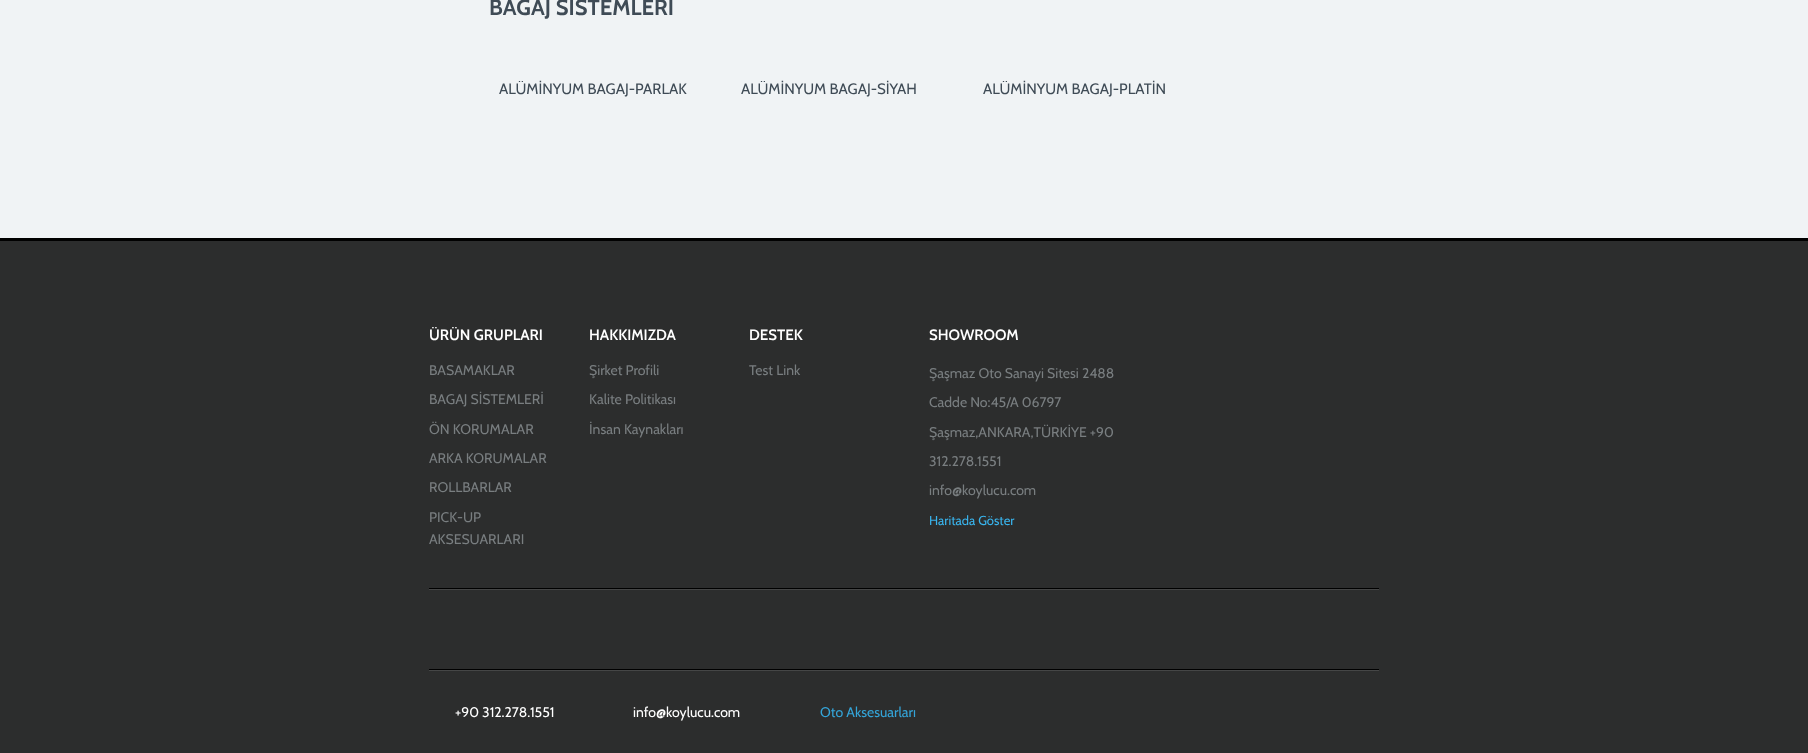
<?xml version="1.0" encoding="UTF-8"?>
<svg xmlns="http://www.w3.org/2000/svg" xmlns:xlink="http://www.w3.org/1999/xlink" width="1808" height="753">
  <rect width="100%" height="100%" fill="#2c2d2d" />
  <rect width="1808" height="238" fill="#f0f3f5" />
  <rect y="238" width="1808" height="3" fill="#000000" />
  <rect x="429" y="588" width="950" height="1" fill="#000000" />
  <rect x="429" y="670" width="950" height="1" fill="#454646" />
  <rect x="429" y="589" width="950" height="1" fill="#454646" />
  <rect x="429" y="669" width="950" height="1" fill="#000000" />
  <text x="489" y="15" style="font-family: Cabin; font-size: 22px; font-weight: bold; fill: #3f4b56">BAGAJ SİSTEMLERİ</text>
  <text x="499" y="94" style="font-family: Cabin; font-size: 15px; fill: #3f4b56">ALÜMİNYUM BAGAJ-PARLAK</text>
  <text x="741" y="94" style="font-family: Cabin; font-size: 15px; fill: #3f4b56">ALÜMİNYUM BAGAJ-SİYAH</text>
  <text x="983" y="94" style="font-family: Cabin; font-size: 15px; fill: #3f4b56">ALÜMİNYUM BAGAJ-PLATİN</text>
  <text x="429" y="340" style="font-family: Cabin; font-size: 15px; font-weight: 600; fill: #ffffff">ÜRÜN GRUPLARI</text>
  <text x="429" y="375" style="font-family: Cabin; font-size: 14px; fill: #797e80">BASAMAKLAR</text>
  <text x="429" y="404" style="font-family: Cabin; font-size: 14px; fill: #797e80">BAGAJ SİSTEMLERİ</text>
  <text x="429" y="434" style="font-family: Cabin; font-size: 14px; fill: #797e80">ÖN KORUMALAR</text>
  <text x="429" y="463" style="font-family: Cabin; font-size: 14px; fill: #797e80">ARKA KORUMALAR</text>
  <text x="429" y="492" style="font-family: Cabin; font-size: 14px; fill: #797e80">ROLLBARLAR</text>
  <text x="429" y="522" style="font-family: Cabin; font-size: 14px; fill: #797e80">PICK-UP</text>
  <text x="429" y="544" style="font-family: Cabin; font-size: 14px; fill: #797e80">AKSESUARLARI</text>
  <text x="589" y="340" style="font-family: Cabin; font-size: 15px; font-weight: 600; fill: #ffffff">HAKKIMIZDA</text>
  <text x="589" y="375" style="font-family: Cabin; font-size: 14px; fill: #797e80">Şirket Profili</text>
  <text x="589" y="404" style="font-family: Cabin; font-size: 14px; fill: #797e80">Kalite Politikası</text>
  <text x="589" y="434" style="font-family: Cabin; font-size: 14px; fill: #797e80">İnsan Kaynakları</text>
  <text x="749" y="340" style="font-family: Cabin; font-size: 15px; font-weight: 600; fill: #ffffff">DESTEK</text>
  <text x="749" y="375" style="font-family: Cabin; font-size: 14px; fill: #797e80">Test Link</text>
  <text x="929" y="340" style="font-family: Cabin; font-size: 15px; font-weight: 600; fill: #ffffff">SHOWROOM</text>
  <text x="929" y="378" style="font-family: Cabin; font-size: 14px; fill: #797e80">Şaşmaz Oto Sanayi Sitesi 2488</text>
  <text x="929" y="407" style="font-family: Cabin; font-size: 14px; fill: #797e80">Cadde No:45/A 06797</text>
  <text x="929" y="437" style="font-family: Cabin; font-size: 14px; fill: #797e80">Şaşmaz,ANKARA,TÜRKİYE +90</text>
  <text x="929" y="466" style="font-family: Cabin; font-size: 14px; fill: #797e80">312.278.1551</text>
  <text x="929" y="495" style="font-family: Cabin; font-size: 14px; fill: #797e80">info@koylucu.com</text>
  <text x="929" y="525" style="font-family: Cabin; font-size: 13px; fill: #39b4ed">Haritada Göster</text>
  <text x="455" y="717" style="font-family: Cabin; font-size: 14px; fill: #ffffff">+90 312.278.1551</text>
  <text x="633" y="717" style="font-family: Cabin; font-size: 14px; fill: #ffffff">info@koylucu.com</text>
  <text x="820" y="717" style="font-family: Cabin; font-size: 14px; fill: #34a4d8">Oto Aksesuarları</text>
</svg>
